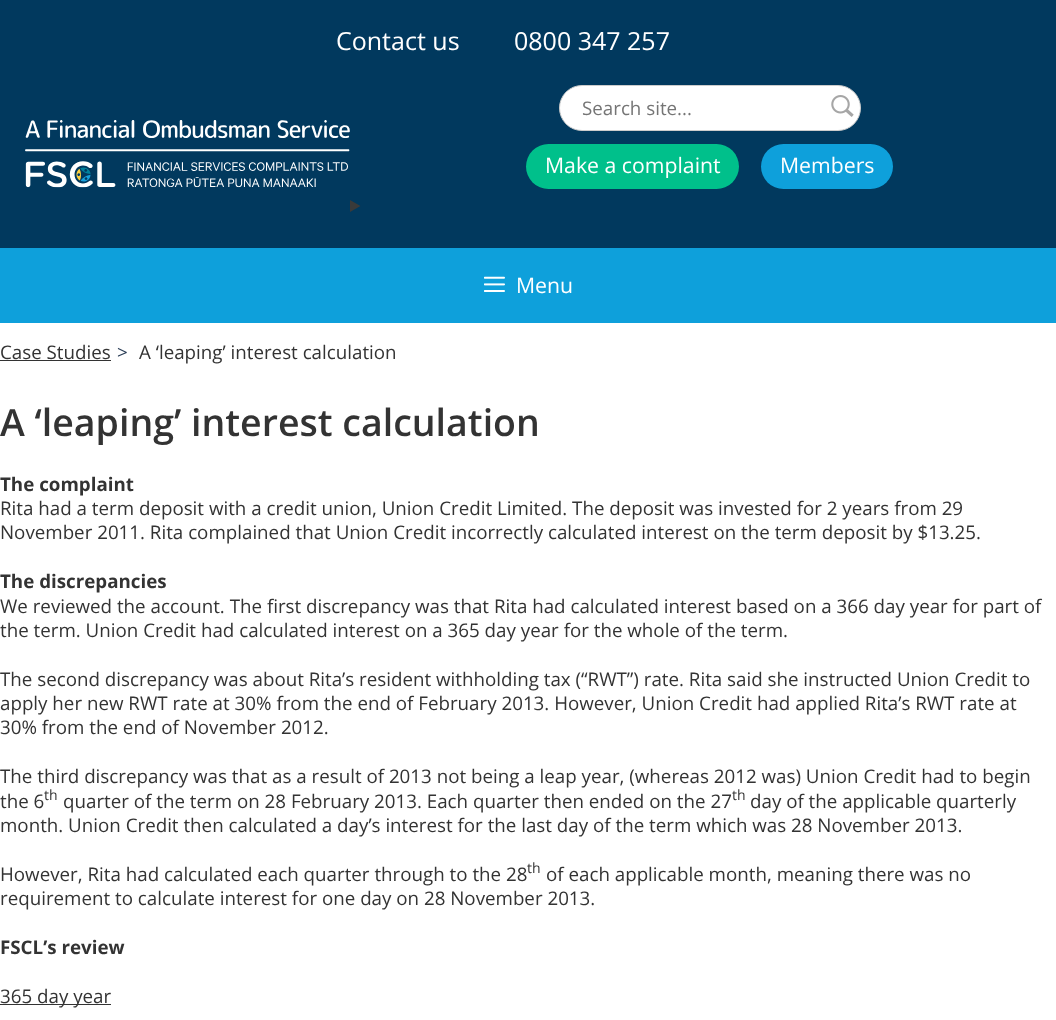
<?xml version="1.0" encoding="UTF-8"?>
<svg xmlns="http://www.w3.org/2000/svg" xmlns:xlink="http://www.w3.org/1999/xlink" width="1056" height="1020">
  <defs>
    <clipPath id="clip1"><rect x="560" y="86" width="300" height="44" rx="22" /></clipPath>
  </defs>
  <rect width="100%" height="100%" fill="#ffffff" />
  <rect width="1056" height="248" fill="#01395e" />
  <image x="25" y="120" width="325" height="68" xlink:href="image1.png" />
  <rect x="559.5" y="85.5" width="301" height="45" rx="22.5" fill="#ffffff" stroke="#cccccc" />
  <g clip-path="url(#clip1)">
    <rect x="564" y="90" width="255" height="36" fill="#ffffff" />
  </g>
  <image x="831" y="95" width="23" height="22" xlink:href="image2.png" />
  <rect x="526" y="144" width="213" height="45" rx="22.5" fill="#00c08b" />
  <rect x="761" y="144" width="132" height="45" rx="22.5" fill="#0ea0db" />
  <path d="M 350 200 l 10.5 6 l -10.5 6 z" fill="#3a3a3a" />
  <rect y="248" width="1056" height="75" fill="#0ea0db" />
  <image x="484" y="276" width="21" height="16" xlink:href="image3.png" />
  <rect y="360" width="111" height="1" fill="#333333" />
  <rect y="1004" width="111" height="1" fill="#333333" />
  <text x="336" y="50" style="font-family: Open Sans; font-size: 25px; fill: #ffffff">Contact us</text>
  <text x="514" y="50" style="font-family: Open Sans; font-size: 25px; fill: #ffffff">0800 347 257</text>
  <text x="582" y="115" style="font-family: Open Sans; font-size: 18.75px; fill: #757575">Search site...</text>
  <text x="545" y="173" style="font-family: Open Sans; font-size: 21.25px; fill: #ffffff">Make a complaint</text>
  <text x="780" y="173" style="font-family: Open Sans; font-size: 21.25px; fill: #ffffff">Members</text>
  <text x="516" y="293" style="font-family: Open Sans; font-size: 21.25px; fill: #ffffff">Menu</text>
  <text x="0" y="359" style="font-family: Open Sans; font-size: 18.75px; fill: #333333">Case Studies</text>
  <text x="117" y="359" style="font-family: Open Sans; font-size: 18.75px; fill: #2c3f58">&gt;</text>
  <text x="139" y="359" style="font-family: Open Sans; font-size: 18.75px; fill: #333333">A ‘leaping’ interest calculation</text>
  <text x="0" y="436" style="font-family: Open Sans; font-size: 37.5px; font-weight: 600; fill: #333333">A ‘leaping’ interest calculation</text>
  <text x="0" y="491" style="font-family: Open Sans; font-size: 18.75px; font-weight: bold; fill: #333333">The complaint</text>
  <text x="0" y="515" style="font-family: Open Sans; font-size: 18.75px; fill: #333333">Rita had a term deposit with a credit union, Union Credit Limited. The deposit was invested for 2 years from 29</text>
  <text x="0" y="539" style="font-family: Open Sans; font-size: 18.75px; fill: #333333">November 2011. Rita complained that Union Credit incorrectly calculated interest on the term deposit by $13.25.</text>
  <text x="0" y="588" style="font-family: Open Sans; font-size: 18.75px; font-weight: bold; fill: #333333">The discrepancies</text>
  <text x="0" y="613" style="font-family: Open Sans; font-size: 18.75px; fill: #333333">We reviewed the account. The first discrepancy was that Rita had calculated interest based on a 366 day year for part of</text>
  <text x="0" y="637" style="font-family: Open Sans; font-size: 18.75px; fill: #333333">the term. Union Credit had calculated interest on a 365 day year for the whole of the term.</text>
  <text x="0" y="686" style="font-family: Open Sans; font-size: 18.75px; fill: #333333">The second discrepancy was about Rita’s resident withholding tax (“RWT”) rate. Rita said she instructed Union Credit to</text>
  <text x="0" y="710" style="font-family: Open Sans; font-size: 18.75px; fill: #333333">apply her new RWT rate at 30% from the end of February 2013. However, Union Credit had applied Rita’s RWT rate at</text>
  <text x="0" y="734" style="font-family: Open Sans; font-size: 18.75px; fill: #333333">30% from the end of November 2012.</text>
  <text x="0" y="783" style="font-family: Open Sans; font-size: 18.75px; fill: #333333">The third discrepancy was that as a result of 2013 not being a leap year, (whereas 2012 was) Union Credit had to begin</text>
  <text x="0" y="808" style="font-family: Open Sans; font-size: 18.75px; fill: #333333">the 6</text>
  <text x="44" y="800" style="font-family: Open Sans; font-size: 14px; fill: #333333">th</text>
  <text x="63" y="808" style="font-family: Open Sans; font-size: 18.75px; fill: #333333">quarter of the term on 28 February 2013. Each quarter then ended on the 27</text>
  <text x="732" y="800" style="font-family: Open Sans; font-size: 14px; fill: #333333">th</text>
  <text x="750" y="808" style="font-family: Open Sans; font-size: 18.75px; fill: #333333">day of the applicable quarterly</text>
  <text x="0" y="832" style="font-family: Open Sans; font-size: 18.75px; fill: #333333">month. Union Credit then calculated a day’s interest for the last day of the term which was 28 November 2013.</text>
  <text x="0" y="881" style="font-family: Open Sans; font-size: 18.75px; fill: #333333">However, Rita had calculated each quarter through to the 28</text>
  <text x="527" y="873" style="font-family: Open Sans; font-size: 14px; fill: #333333">th</text>
  <text x="546" y="881" style="font-family: Open Sans; font-size: 18.75px; fill: #333333">of each applicable month, meaning there was no</text>
  <text x="0" y="905" style="font-family: Open Sans; font-size: 18.75px; fill: #333333">requirement to calculate interest for one day on 28 November 2013.</text>
  <text x="0" y="954" style="font-family: Open Sans; font-size: 18.75px; font-weight: bold; fill: #333333">FSCL’s review</text>
  <text x="0" y="1003" style="font-family: Open Sans; font-size: 18.75px; fill: #333333">365 day year</text>
</svg>
